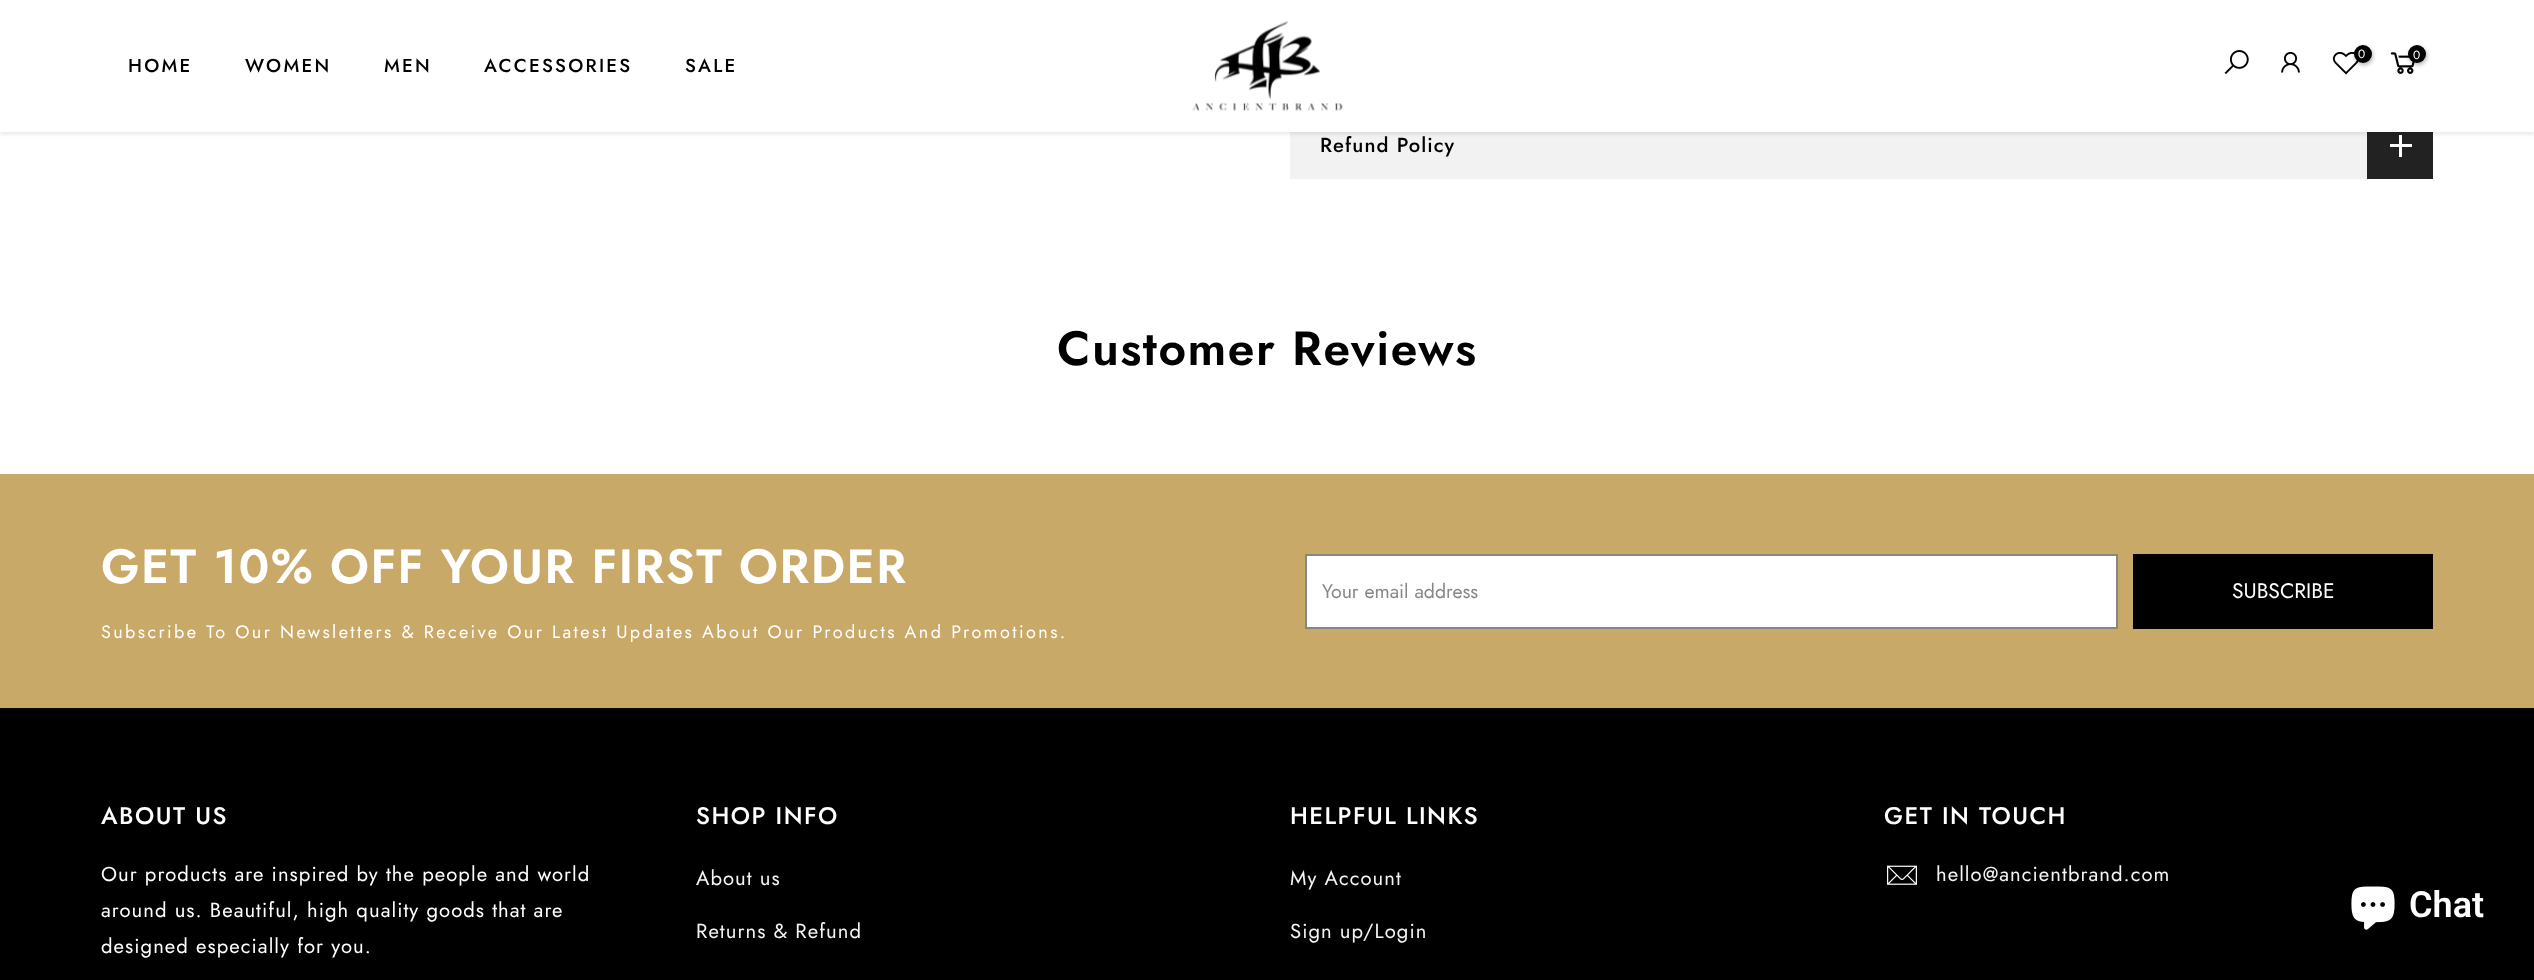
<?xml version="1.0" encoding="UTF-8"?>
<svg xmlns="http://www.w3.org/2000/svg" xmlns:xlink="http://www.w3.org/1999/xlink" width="2534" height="980">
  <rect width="100%" height="100%" fill="#ffffff" />
  <rect x="1290" y="132" width="1077" height="47" fill="#f2f2f2" />
  <rect x="2367" y="132" width="66" height="47" fill="#222222" />
  <rect x="2399" y="135" width="3" height="22" fill="#ffffff" />
  <rect y="2" width="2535" height="132" fill="#000000" fill-opacity="0.1" filter="blur(2px)" />
  <rect width="2534" height="132" fill="#ffffff" />
  <image x="1192" y="20" width="151" height="91" xlink:href="image1.png" />
  <image x="2224" y="50" width="25" height="25" xlink:href="image2.png" />
  <image x="2281" y="51" width="19" height="22" xlink:href="image3.png" />
  <image x="2332" y="52" width="27" height="23" xlink:href="image4.png" />
  <rect x="2355" y="47" width="18" height="18" rx="9" fill="#000000" fill-opacity="0.3" filter="blur(2px)" />
  <circle cx="2363" cy="54" r="9" fill="#000000" />
  <image x="2390" y="52" width="25" height="22" xlink:href="image5.png" />
  <rect x="2409" y="47" width="18" height="18" rx="9" fill="#000000" fill-opacity="0.3" filter="blur(2px)" />
  <circle cx="2417" cy="54" r="9" fill="#000000" />
  <rect x="2390" y="144" width="22" height="3" fill="#ffffff" />
  <rect y="474" width="2534" height="234" fill="#c9a968" />
  <rect x="1306" y="555" width="811" height="73" fill="#ffffff" stroke="#878787" stroke-width="2" />
  <rect x="2133" y="554" width="300" height="75" fill="#000000" />
  <rect y="710" width="2534" height="270" fill="#000000" />
  <rect y="708" width="2534" height="2" fill="#060606" />
  <image x="1887" y="865" width="30" height="20" xlink:href="image6.png" />
  <image x="2351" y="886" width="44" height="44" xlink:href="image7.png" />
  <text x="2358" y="58" style="font-family: Jost; font-size: 12px; fill: #ffffff">0</text>
  <text x="2413" y="59" style="font-family: Jost; font-size: 12px; fill: #ffffff">0</text>
  <text x="128" y="72" style="font-family: Jost; font-size: 18.75px; font-weight: 500; letter-spacing: 2.25px; fill: #000000">HOME</text>
  <text x="245" y="72" style="font-family: Jost; font-size: 18.75px; font-weight: 500; letter-spacing: 2.25px; fill: #000000">WOMEN</text>
  <text x="384" y="72" style="font-family: Jost; font-size: 18.75px; font-weight: 500; letter-spacing: 2.25px; fill: #000000">MEN</text>
  <text x="484" y="72" style="font-family: Jost; font-size: 18.75px; font-weight: 500; letter-spacing: 2.25px; fill: #000000">ACCESSORIES</text>
  <text x="685" y="72" style="font-family: Jost; font-size: 18.75px; font-weight: 500; letter-spacing: 2.25px; fill: #000000">SALE</text>
  <text x="1320" y="152" style="font-family: Jost; font-size: 20.25px; font-weight: 500; letter-spacing: 1.05px; fill: #000000">Refund Policy</text>
  <text x="1057" y="365" style="font-family: Jost; font-size: 48px; font-weight: 600; letter-spacing: 1.5px; fill: #000000">Customer Reviews</text>
  <text x="101" y="583" style="font-family: Jost; font-size: 48px; font-weight: 600; letter-spacing: 1.5px; fill: #ffffff">GET 10% OFF YOUR FIRST ORDER</text>
  <text x="101" y="638" style="font-family: Jost; font-size: 18px; letter-spacing: 2.4px; fill: #ffffff">Subscribe To Our Newsletters &amp; Receive Our Latest Updates About Our Products And Promotions.</text>
  <text x="1322" y="598" style="font-family: Jost; font-size: 19.5px; fill: #878787">Your email address</text>
  <text x="2232" y="598" style="font-family: Jost; font-size: 21px; fill: #ffffff">SUBSCRIBE</text>
  <text x="101" y="824" style="font-family: Jost; font-size: 24px; font-weight: 500; letter-spacing: 1.5px; fill: #ffffff">ABOUT US</text>
  <text x="101" y="881" style="font-family: Jost; font-size: 20.25px; letter-spacing: 1.05px; fill: #ffffff">Our products are inspired by the people and world</text>
  <text x="101" y="917" style="font-family: Jost; font-size: 20.25px; letter-spacing: 1.05px; fill: #ffffff">around us. Beautiful, high quality goods that are</text>
  <text x="101" y="953" style="font-family: Jost; font-size: 20.25px; letter-spacing: 1.05px; fill: #ffffff">designed especially for you.</text>
  <text x="696" y="824" style="font-family: Jost; font-size: 24px; font-weight: 500; letter-spacing: 1.5px; fill: #ffffff">SHOP INFO</text>
  <text x="696" y="885" style="font-family: Jost; font-size: 20.25px; letter-spacing: 1.05px; fill: #f4f4f4">About us</text>
  <text x="696" y="938" style="font-family: Jost; font-size: 20.25px; letter-spacing: 1.05px; fill: #f4f4f4">Returns &amp; Refund</text>
  <text x="1290" y="824" style="font-family: Jost; font-size: 24px; font-weight: 500; letter-spacing: 1.5px; fill: #ffffff">HELPFUL LINKS</text>
  <text x="1290" y="885" style="font-family: Jost; font-size: 20.25px; letter-spacing: 1.05px; fill: #f4f4f4">My Account</text>
  <text x="1290" y="938" style="font-family: Jost; font-size: 20.25px; letter-spacing: 1.05px; fill: #f4f4f4">Sign up/Login</text>
  <text x="1884" y="824" style="font-family: Jost; font-size: 24px; font-weight: 500; letter-spacing: 1.5px; fill: #ffffff">GET IN TOUCH</text>
  <text x="1936" y="881" style="font-family: Jost; font-size: 20.25px; letter-spacing: 1.05px; fill: #f4f4f4">hello@ancientbrand.com</text>
  <text x="2409" y="917" style="font-family: Roboto; font-size: 36px; font-weight: 600; fill: #ffffff">Chat</text>
</svg>
